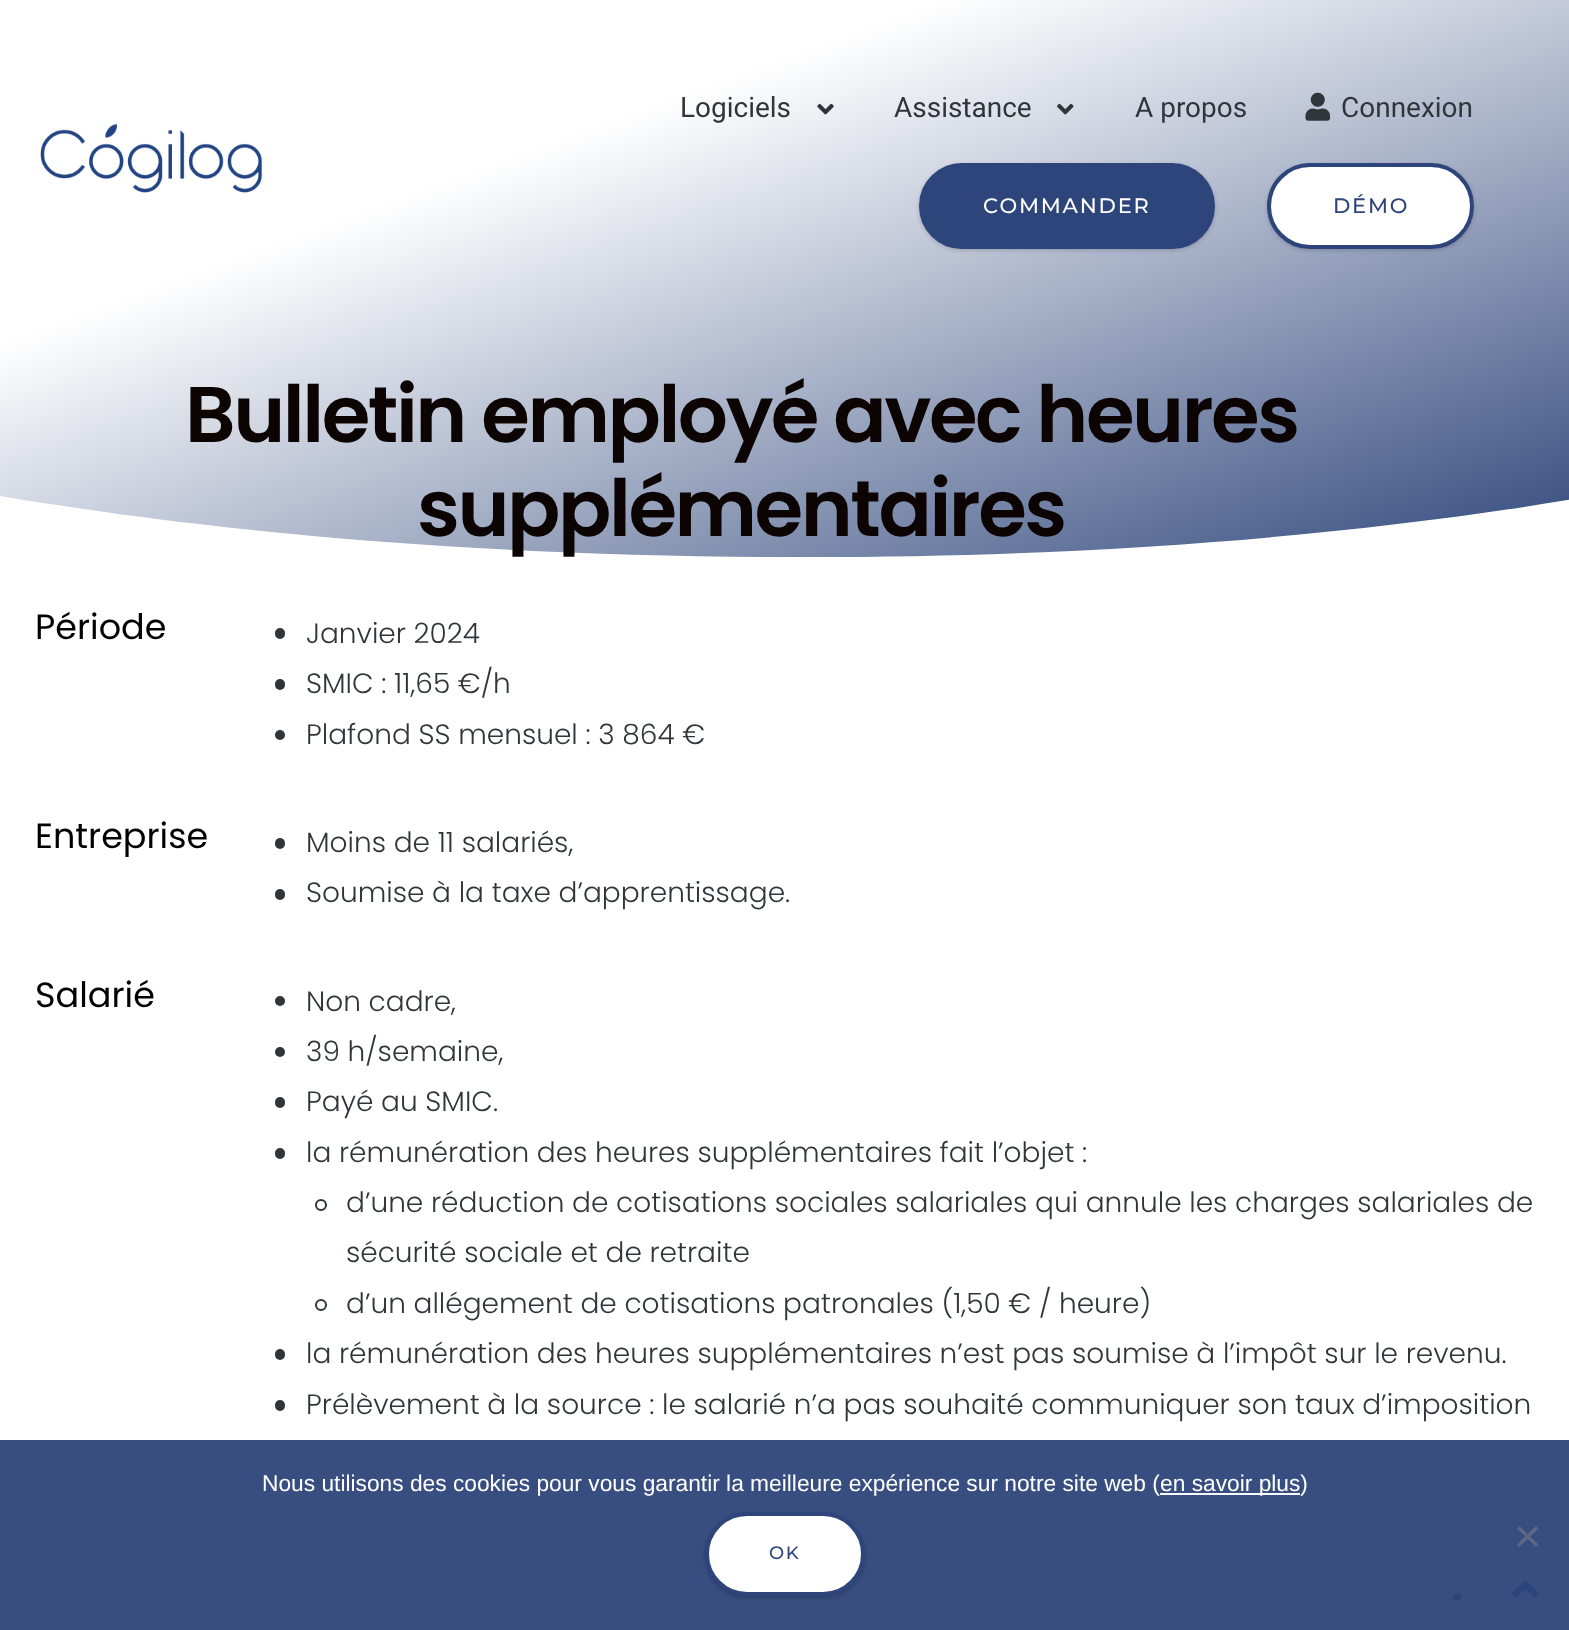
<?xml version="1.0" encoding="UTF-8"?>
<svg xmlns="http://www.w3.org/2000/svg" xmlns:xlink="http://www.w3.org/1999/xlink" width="1569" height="1630">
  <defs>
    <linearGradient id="g1" gradientUnits="userSpaceOnUse" x1="601" y1="-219" x2="969" y2="793"><stop offset="0.3" stop-color="#ffffff" /><stop offset="1" stop-color="#2d457a" /></linearGradient>
  </defs>
  <rect width="100%" height="100%" fill="#ffffff" />
  <rect y="1440" width="1569" height="190" fill="#384e81" />
  <rect width="1569" height="557" fill="url(#g1)" />
  <image x="40" y="123" width="223" height="70" xlink:href="image1.png" />
  <image x="817" y="103" width="17" height="12" xlink:href="image2.png" />
  <image x="1057" y="103" width="17" height="12" xlink:href="image3.png" />
  <image x="1305" y="92" width="25" height="29" xlink:href="image4.png" />
  <rect x="919" y="165" width="296" height="85" rx="42.5" fill="#000000" fill-opacity="0.2" filter="blur(2px)" />
  <rect x="921" y="165" width="292" height="82" rx="41" fill="#2d457a" stroke="#2d457a" stroke-width="4" />
  <rect x="1267" y="165" width="207" height="85" rx="42.5" fill="#000000" fill-opacity="0.2" filter="blur(2px)" />
  <rect x="1269" y="165" width="203" height="82" rx="41" fill="#ffffff" stroke="#2d457a" stroke-width="4" />
  <path d="M 786 557 c -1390 -4 -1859 -472 -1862 -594 v 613 h 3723 v -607 c 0 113 -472 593 -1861 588 z" fill="#ffffff" />
  <rect x="275" y="628" width="10" height="11" rx="5" fill="#30353a" />
  <rect x="275" y="679" width="10" height="11" rx="5" fill="#30353a" />
  <circle cx="280" cy="735" r="5" fill="#30353a" />
  <rect x="275" y="838" width="10" height="11" rx="5" fill="#30353a" />
  <rect x="275" y="889" width="10" height="11" rx="5" fill="#30353a" />
  <circle cx="280" cy="1001" r="5" fill="#30353a" />
  <circle cx="280" cy="1052" r="5" fill="#30353a" />
  <rect x="275" y="1097" width="10" height="11" rx="5" fill="#30353a" />
  <rect x="275" y="1148" width="10" height="11" rx="5" fill="#30353a" />
  <circle cx="321" cy="1205" r="5" fill="none" stroke="#30353a" stroke-width="2" />
  <circle cx="321" cy="1305" r="5" fill="none" stroke="#30353a" stroke-width="2" />
  <rect x="275" y="1349" width="10" height="11" rx="5" fill="#30353a" />
  <rect x="275" y="1400" width="10" height="11" rx="5" fill="#30353a" />
  <rect x="1160" y="1493" width="140" height="2" fill="#ffffff" />
  <path d="M 1536 1526 l 2.5 2.5 l -19 18.5 l -2.5 -2.5 z" fill="#5c6780" />
  <path d="M 1517 1528.5 l 2.5 -2.5 l 19 18.5 l -2.5 2.5 z" fill="#5c6780" />
  <rect x="705" y="1514" width="160" height="84" rx="42" fill="#000000" fill-opacity="0.2" filter="blur(2px)" />
  <rect x="707" y="1514" width="156" height="80" rx="40" fill="#ffffff" stroke="#2d457a" stroke-width="4" />
  <circle cx="1457" cy="1597" r="4" fill="#2d4477" />
  <image x="1512" y="1580" width="27" height="18" xlink:href="image5.png" />
  <text x="680" y="117" style="font-family: Roboto; font-size: 28px; fill: #30353a">Logiciels</text>
  <text x="894" y="117" style="font-family: Roboto; font-size: 28px; fill: #30353a">Assistance</text>
  <text x="1135" y="117" style="font-family: Roboto; font-size: 28px; fill: #30353a">A propos</text>
  <text x="1341" y="117" style="font-family: Roboto; font-size: 28px; fill: #30353a">Connexion</text>
  <text x="983" y="213" style="font-family: Montserrat; font-size: 21px; font-weight: 500; letter-spacing: 1.75px; fill: #ffffff">COMMANDER</text>
  <text x="1333" y="213" style="font-family: Montserrat; font-size: 21px; font-weight: 500; letter-spacing: 1.75px; fill: #2d457a">DÉMO</text>
  <text x="185" y="442" style="font-family: Poppins; font-size: 78.75px; font-weight: 600; letter-spacing: -2.45px; fill: #0c0303">Bulletin employé avec heures</text>
  <text x="417" y="536" style="font-family: Poppins; font-size: 78.75px; font-weight: 600; letter-spacing: -2.45px; fill: #0c0303">supplémentaires</text>
  <text x="35" y="639" style="font-family: Poppins; font-size: 35px; fill: #000000">Période</text>
  <text x="306" y="643" style="font-family: Poppins; font-size: 28px; font-weight: 300; fill: #30353a">Janvier 2024</text>
  <text x="306" y="693" style="font-family: Poppins; font-size: 28px; font-weight: 300; fill: #30353a">SMIC : 11,65 €/h</text>
  <text x="306" y="744" style="font-family: Poppins; font-size: 28px; font-weight: 300; fill: #30353a">Plafond SS mensuel : 3 864 €</text>
  <text x="35" y="848" style="font-family: Poppins; font-size: 35px; fill: #000000">Entreprise</text>
  <text x="306" y="852" style="font-family: Poppins; font-size: 28px; font-weight: 300; fill: #30353a">Moins de 11 salariés,</text>
  <text x="306" y="902" style="font-family: Poppins; font-size: 28px; font-weight: 300; fill: #30353a">Soumise à la taxe d’apprentissage.</text>
  <text x="35" y="1007" style="font-family: Poppins; font-size: 35px; fill: #000000">Salarié</text>
  <text x="306" y="1011" style="font-family: Poppins; font-size: 28px; font-weight: 300; fill: #30353a">Non cadre,</text>
  <text x="306" y="1061" style="font-family: Poppins; font-size: 28px; font-weight: 300; fill: #30353a">39 h/semaine,</text>
  <text x="306" y="1111" style="font-family: Poppins; font-size: 28px; font-weight: 300; fill: #30353a">Payé au SMIC.</text>
  <text x="306" y="1162" style="font-family: Poppins; font-size: 28px; font-weight: 300; fill: #30353a">la rémunération des heures supplémentaires fait l’objet :</text>
  <text x="346" y="1212" style="font-family: Poppins; font-size: 28px; font-weight: 300; fill: #30353a">d’une réduction de cotisations sociales salariales qui annule les charges salariales de</text>
  <text x="346" y="1262" style="font-family: Poppins; font-size: 28px; font-weight: 300; fill: #30353a">sécurité sociale et de retraite</text>
  <text x="346" y="1313" style="font-family: Poppins; font-size: 28px; font-weight: 300; fill: #30353a">d’un allégement de cotisations patronales (1,50 € / heure)</text>
  <text x="306" y="1363" style="font-family: Poppins; font-size: 28px; font-weight: 300; fill: #30353a">la rémunération des heures supplémentaires n’est pas soumise à l’impôt sur le revenu.</text>
  <text x="306" y="1414" style="font-family: Poppins; font-size: 28px; font-weight: 300; fill: #30353a">Prélèvement à la source : le salarié n’a pas souhaité communiquer son taux d’imposition</text>
  <text x="262" y="1491" style="font-family: Liberation Sans; font-size: 22.75px; fill: #ffffff">Nous utilisons des cookies pour vous garantir la meilleure expérience sur notre site web (</text>
  <text x="1160" y="1491" style="font-family: Liberation Sans; font-size: 22.75px; fill: #ffffff">en savoir plus)</text>
  <text x="769" y="1559" style="font-family: Montserrat; font-size: 18px; font-weight: 500; letter-spacing: 1.75px; fill: #2d457a">OK</text>
</svg>
